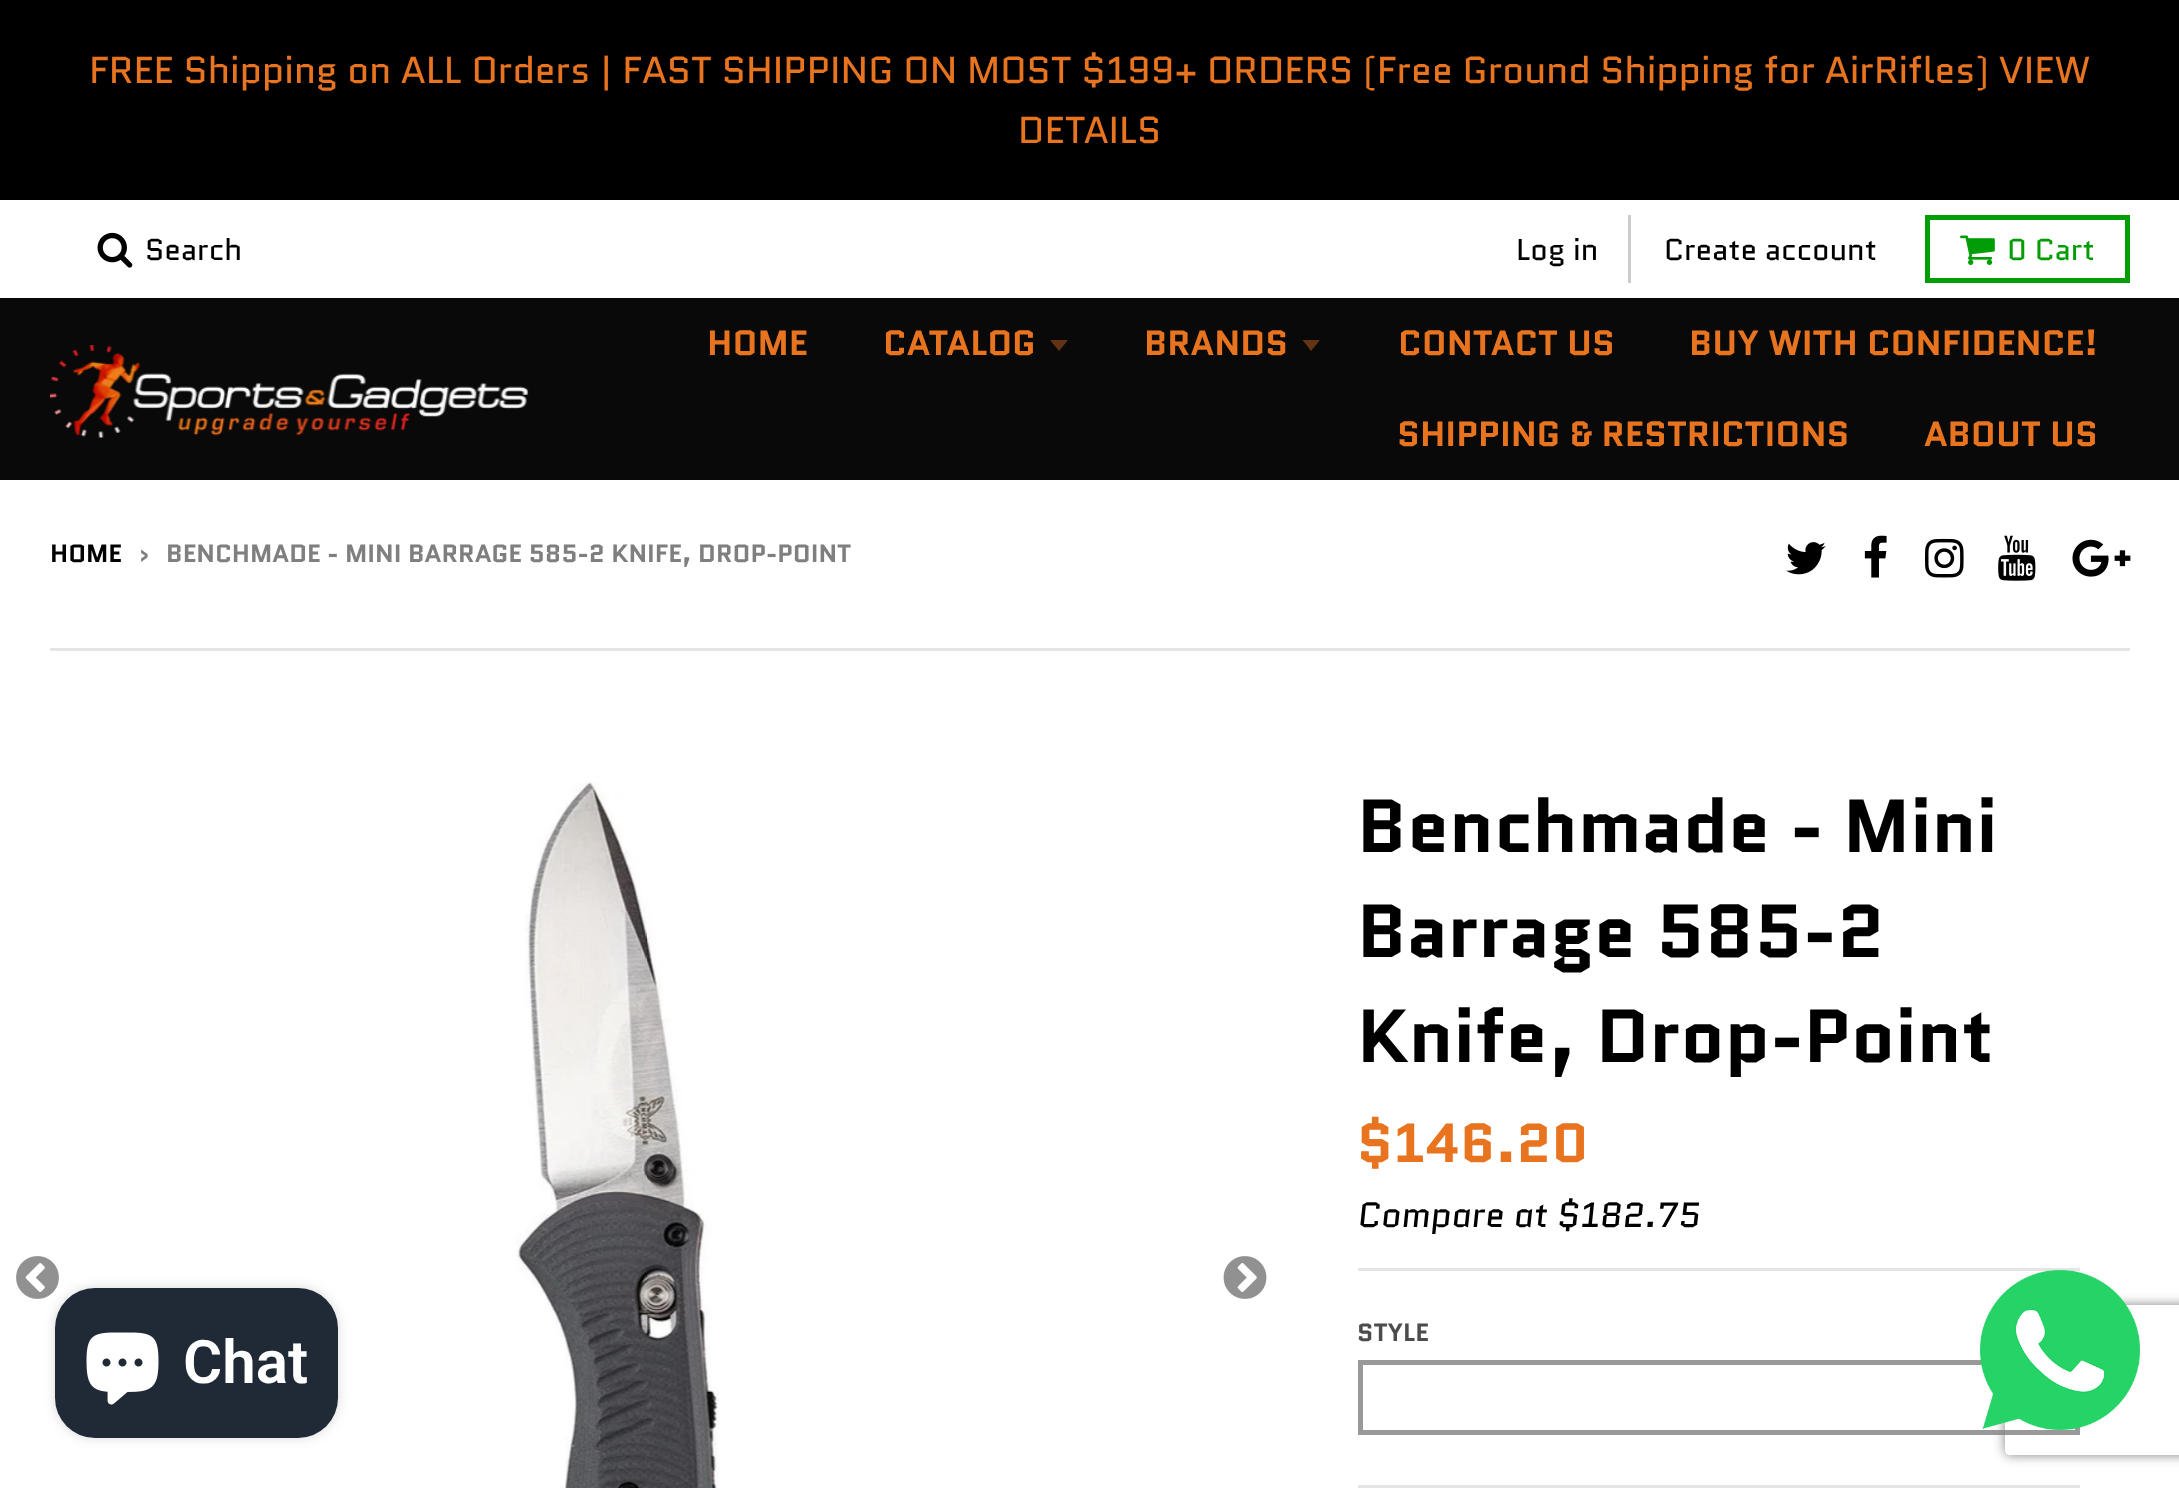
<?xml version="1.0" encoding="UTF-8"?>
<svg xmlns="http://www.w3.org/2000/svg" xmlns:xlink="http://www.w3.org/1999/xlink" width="2179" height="1488">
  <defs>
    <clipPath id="clip1"><path d="M 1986 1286 h 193 v 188 h -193 z m 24 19 h 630 c 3 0 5 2 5 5 v 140 c 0 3 -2 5 -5 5 h -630 c -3 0 -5 -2 -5 -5 v -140 c 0 -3 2 -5 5 -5 z" clip-rule="evenodd" /></clipPath>
  </defs>
  <rect width="100%" height="100%" fill="#ffffff" />
  <rect width="2179" height="200" fill="#000000" />
  <image x="97" y="232" width="36" height="36" xlink:href="image1.png" />
  <rect x="1628" y="215" width="3" height="68" fill="#cccccc" />
  <rect x="1927.5" y="217.5" width="200" height="63" fill="none" stroke="#009d05" stroke-width="5" />
  <image x="1960" y="235" width="35" height="30" xlink:href="image2.png" />
  <rect y="298" width="2179" height="182" fill="#0a0909" />
  <image x="50" y="345" width="479" height="93" xlink:href="image3.png" />
  <path d="M 1050 340 l 9 11 l 9 -11 z" fill="#633412" />
  <path d="M 1302.5 340 l 8.5 11 l 9 -11 z" fill="#633412" />
  <image x="1786" y="542" width="40" height="33" xlink:href="image4.png" />
  <image x="1864" y="535" width="23" height="43" xlink:href="image5.png" />
  <image x="1925" y="538" width="39" height="40" xlink:href="image6.png" />
  <image x="1998" y="535" width="38" height="46" xlink:href="image7.png" />
  <image x="2072" y="539" width="59" height="38" xlink:href="image8.png" />
  <rect x="50" y="648" width="2080" height="3" fill="#e5e5e5" />
  <image x="16" y="1256" width="43" height="43" xlink:href="image9.png" />
  <image x="516" y="782" width="203" height="706" xlink:href="image10.png" />
  <image x="1223" y="1256" width="44" height="43" xlink:href="image11.png" />
  <rect x="1358" y="1268" width="722" height="3" fill="#e5e5e5" />
  <rect x="1358" y="1485" width="722" height="3" fill="#e5e5e5" />
  <rect x="1360.5" y="1362.5" width="717" height="70" fill="none" stroke="#999999" stroke-width="5" />
  <g clip-path="url(#clip1)">
    <rect x="2005" y="1305" width="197" height="150" rx="5" fill="#808080" filter="blur(6px)" />
  </g>
  <image x="1980" y="1270" width="160" height="160" xlink:href="image12.png" />
  <rect x="55" y="1288" width="283" height="150" rx="40" fill="#000000" fill-opacity="0.15" filter="blur(6px)" />
  <rect x="55" y="1288" width="283" height="150" rx="40" fill="#202a36" />
  <image x="86" y="1332" width="73" height="73" xlink:href="image13.png" />
  <text x="89" y="83" style="font-family: Quantico; font-size: 37.5px; fill: #e87420">FREE Shipping on ALL Orders | FAST SHIPPING ON MOST $199+ ORDERS (Free Ground Shipping for AirRifles) VIEW</text>
  <text x="1018" y="143" style="font-family: Quantico; font-size: 37.5px; fill: #e87420">DETAILS</text>
  <text x="145" y="260" style="font-family: Quantico; font-size: 30px; fill: #000000">Search</text>
  <text x="1516" y="260" style="font-family: Quantico; font-size: 30px; fill: #000000">Log in</text>
  <text x="1664" y="260" style="font-family: Quantico; font-size: 30px; fill: #000000">Create account</text>
  <text x="2007" y="260" style="font-family: Quantico; font-size: 30px; fill: #009d05">0 Cart</text>
  <text x="707" y="355" style="font-family: Quantico; font-size: 35px; font-weight: bold; fill: #e87420">HOME</text>
  <text x="883" y="355" style="font-family: Quantico; font-size: 35px; font-weight: bold; fill: #e87420">CATALOG</text>
  <text x="1144" y="355" style="font-family: Quantico; font-size: 35px; font-weight: bold; fill: #e87420">BRANDS</text>
  <text x="1398" y="355" style="font-family: Quantico; font-size: 35px; font-weight: bold; fill: #e87420">CONTACT US</text>
  <text x="1689" y="355" style="font-family: Quantico; font-size: 35px; font-weight: bold; fill: #e87420">BUY WITH CONFIDENCE!</text>
  <text x="1397" y="446" style="font-family: Quantico; font-size: 35px; font-weight: bold; fill: #e87420">SHIPPING &amp; RESTRICTIONS</text>
  <text x="1924" y="446" style="font-family: Quantico; font-size: 35px; font-weight: bold; fill: #e87420">ABOUT US</text>
  <text x="50" y="562" style="font-family: Quantico; font-size: 25px; font-weight: bold; fill: #000000">HOME</text>
  <text x="139" y="562" style="font-family: Quantico; font-size: 25px; font-weight: bold; fill: #7f7f7f">›</text>
  <text x="166" y="562" style="font-family: Quantico; font-size: 25px; font-weight: bold; fill: #7f7f7f">BENCHMADE - MINI BARRAGE 585-2 KNIFE, DROP-POINT</text>
  <text x="1357" y="852" style="font-family: Quantico; font-size: 75px; font-weight: bold; fill: #000000">Benchmade - Mini</text>
  <text x="1357" y="957" style="font-family: Quantico; font-size: 75px; font-weight: bold; fill: #000000">Barrage 585-2</text>
  <text x="1357" y="1062" style="font-family: Quantico; font-size: 75px; font-weight: bold; fill: #000000">Knife, Drop-Point</text>
  <text x="1357" y="1162" style="font-family: Quantico; font-size: 55px; font-weight: bold; fill: #e87420">$146.20</text>
  <text x="1357" y="1227" style="font-family: Quantico; font-size: 35px; font-style: italic; fill: #000000">Compare at $182.75</text>
  <text x="1357" y="1341" style="font-family: Quantico; font-size: 25px; font-weight: bold; fill: #4c4c4c">STYLE</text>
  <text x="183" y="1383" style="font-family: Roboto; font-size: 60px; font-weight: 600; fill: #ffffff">Chat</text>
</svg>
